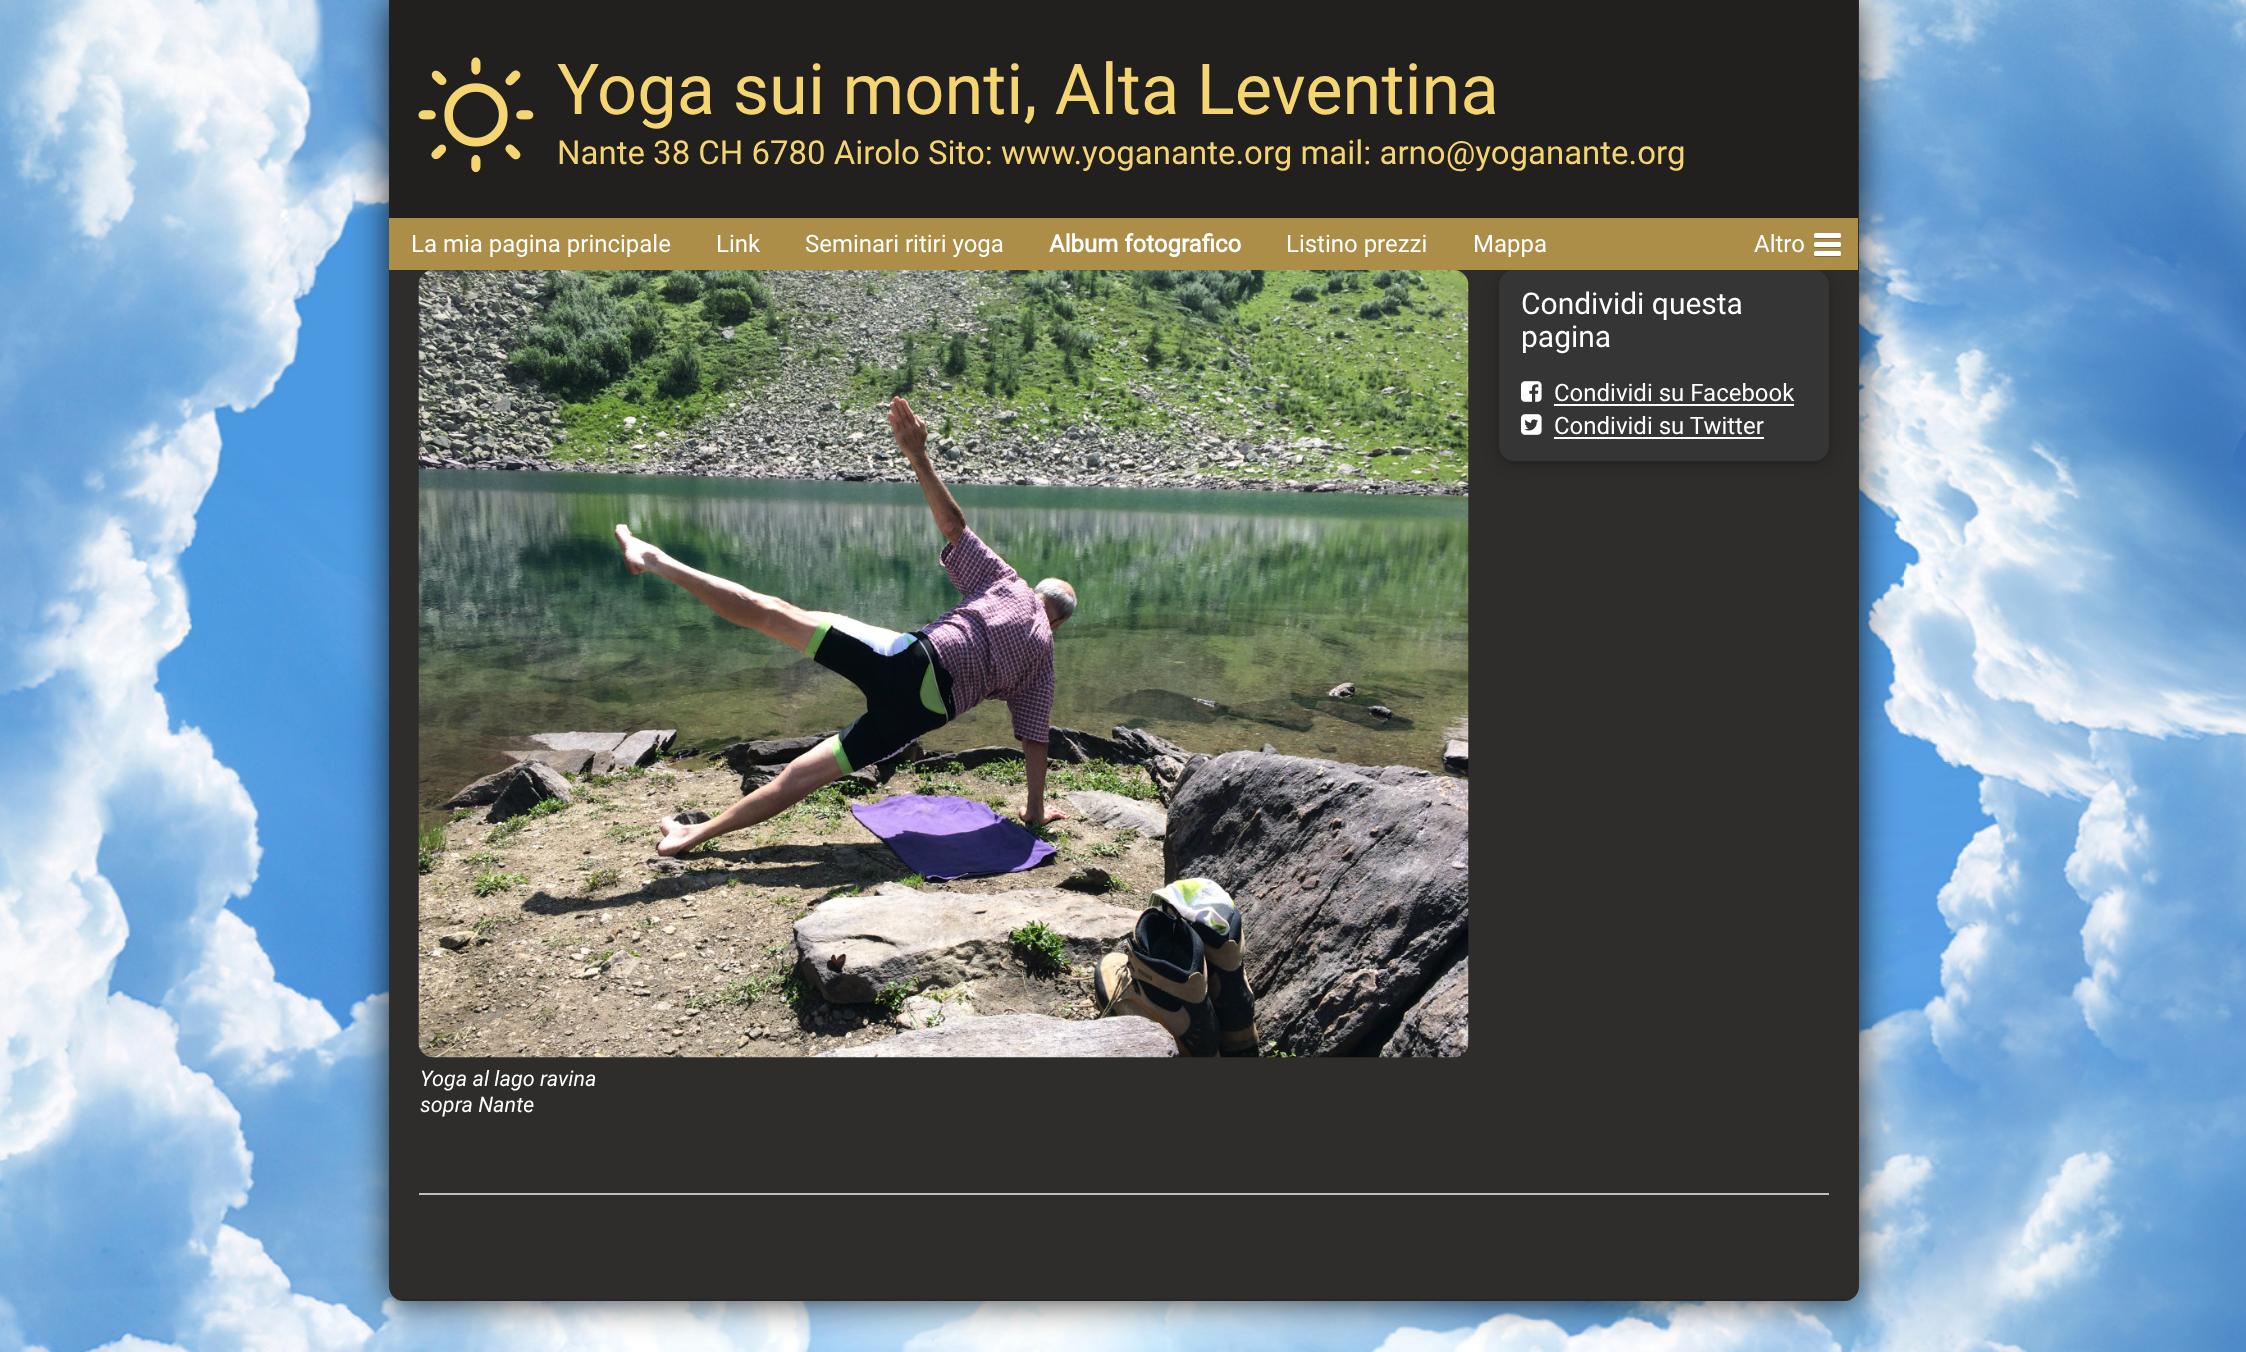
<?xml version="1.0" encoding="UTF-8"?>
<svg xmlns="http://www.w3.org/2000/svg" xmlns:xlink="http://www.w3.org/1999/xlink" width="2246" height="1352">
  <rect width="100%" height="100%" fill="#ffffff" />
  <image x="0" y="0" width="2246" height="1352" xlink:href="image1.png" />
  <rect x="389" width="1470" height="1301" rx="15" fill="#000000" fill-opacity="0.8" filter="blur(18px)" />
  <path d="M 389 0 h 1470 v 1286 c 0 8.5 -6.5 15 -15 15 h -1440 c -8.5 0 -15 -6.5 -15 -15 z" fill="#2e2d2c" />
  <rect x="396" y="1299" width="1455" height="2" fill="#000000" fill-opacity="0.15" />
  <rect x="389" width="1469" height="218" fill="#21201e" />
  <image x="418" y="57" width="116" height="116" xlink:href="image2.png" />
  <rect x="1499" y="273" width="330" height="191" rx="15" fill="#000000" fill-opacity="0.29" filter="blur(7.5px)" />
  <rect x="389" y="218" width="1469" height="52" fill="#ad8e48" />
  <path d="M 1814 236.5 c 0 3.5 2.5 2.5 5.5 2.5 h 16 c 3.5 0 5.5 1 5.5 -2.5 c 0 -1 0 -1.5 -0.5 -2 c 0 3.5 -2 2.5 -5.5 2.5 h -12 c -1.5 0 -8 0.5 -9 -0.5 z" fill="#826b36" />
  <rect x="1814" y="233" width="27" height="5" rx="1.5" fill="#ffffff" />
  <path d="M 1814 245.5 c 0 3.5 2.5 2.5 5.5 2.5 h 16 c 3.5 0 5.5 1 5.5 -2.5 c 0 -1 0 -1.5 -0.5 -2 c 0 3.5 -2 2.5 -5.5 2.5 h -12 c -1.5 0 -8 0.5 -9 -0.5 z" fill="#826b36" />
  <rect x="1814" y="242" width="27" height="5" rx="1.5" fill="#ffffff" />
  <path d="M 1814 254.5 c 0 3.5 2.5 2.5 5.5 2.5 h 16 c 3.5 0 5.5 1 5.5 -2.5 c 0 -1 0 -1.5 -0.5 -2 c 0 3.5 -2 2.5 -5.5 2.5 h -12 c -1.5 0 -8 0.5 -9 -0.5 z" fill="#826b36" />
  <rect x="1814" y="251" width="27" height="5" rx="1.5" fill="#ffffff" />
  <rect x="1499" y="270" width="330" height="191" rx="15" fill="#353535" />
  <image x="1521" y="381" width="21" height="21" xlink:href="image3.png" />
  <rect x="1554" y="404" width="240" height="2" fill="#ffffff" />
  <image x="1521" y="414" width="21" height="21" xlink:href="image4.png" />
  <rect x="1554" y="437" width="210" height="2" fill="#ffffff" />
  <image x="418" y="270" width="1051" height="788" xlink:href="image5.png" />
  <path d="M 389 1193 v 91 c 0 8 7 15 15 15 h 1440 c 8 0 14 -6 14 -13 v -93 z" fill="#2e2d2c" />
  <rect x="419" y="1193" width="1410" height="2" fill="#bebebe" />
  <text x="557" y="114" style="font-family: Roboto; font-size: 70.5px; fill: #f5d472">Yoga sui monti, Alta Leventina</text>
  <text x="557" y="164" style="font-family: Roboto; font-size: 33px; fill: #f5d472">Nante 38 CH 6780 Airolo Sito: www.yoganante.org mail: arno@yoganante.org</text>
  <text x="411" y="252" style="font-family: Roboto; font-size: 24px; fill: #ffffff">La mia pagina principale</text>
  <text x="716" y="252" style="font-family: Roboto; font-size: 24px; fill: #ffffff">Link</text>
  <text x="805" y="252" style="font-family: Roboto; font-size: 24px; fill: #ffffff">Seminari ritiri yoga</text>
  <text x="1049" y="252" style="font-family: Roboto; font-size: 24px; font-weight: bold; fill: #ffffff">Album fotografico</text>
  <text x="1286" y="252" style="font-family: Roboto; font-size: 24px; fill: #ffffff">Listino prezzi</text>
  <text x="1473" y="252" style="font-family: Roboto; font-size: 24px; fill: #ffffff">Mappa</text>
  <text x="1754" y="252" style="font-family: Roboto; font-size: 24px; fill: #ffffff">Altro</text>
  <text x="1521" y="314" style="font-family: Roboto; font-size: 30px; fill: #ffffff">Condividi questa</text>
  <text x="1521" y="347" style="font-family: Roboto; font-size: 30px; fill: #ffffff">pagina</text>
  <text x="1554" y="401" style="font-family: Roboto; font-size: 24px; fill: #ffffff">Condividi su Facebook</text>
  <text x="1554" y="434" style="font-family: Roboto; font-size: 24px; fill: #ffffff">Condividi su Twitter</text>
  <text x="420" y="1086" style="font-family: Roboto; font-size: 21.5px; font-style: italic; fill: #ffffff">Yoga al lago ravina</text>
  <text x="420" y="1112" style="font-family: Roboto; font-size: 21.5px; font-style: italic; fill: #ffffff">sopra Nante</text>
</svg>
